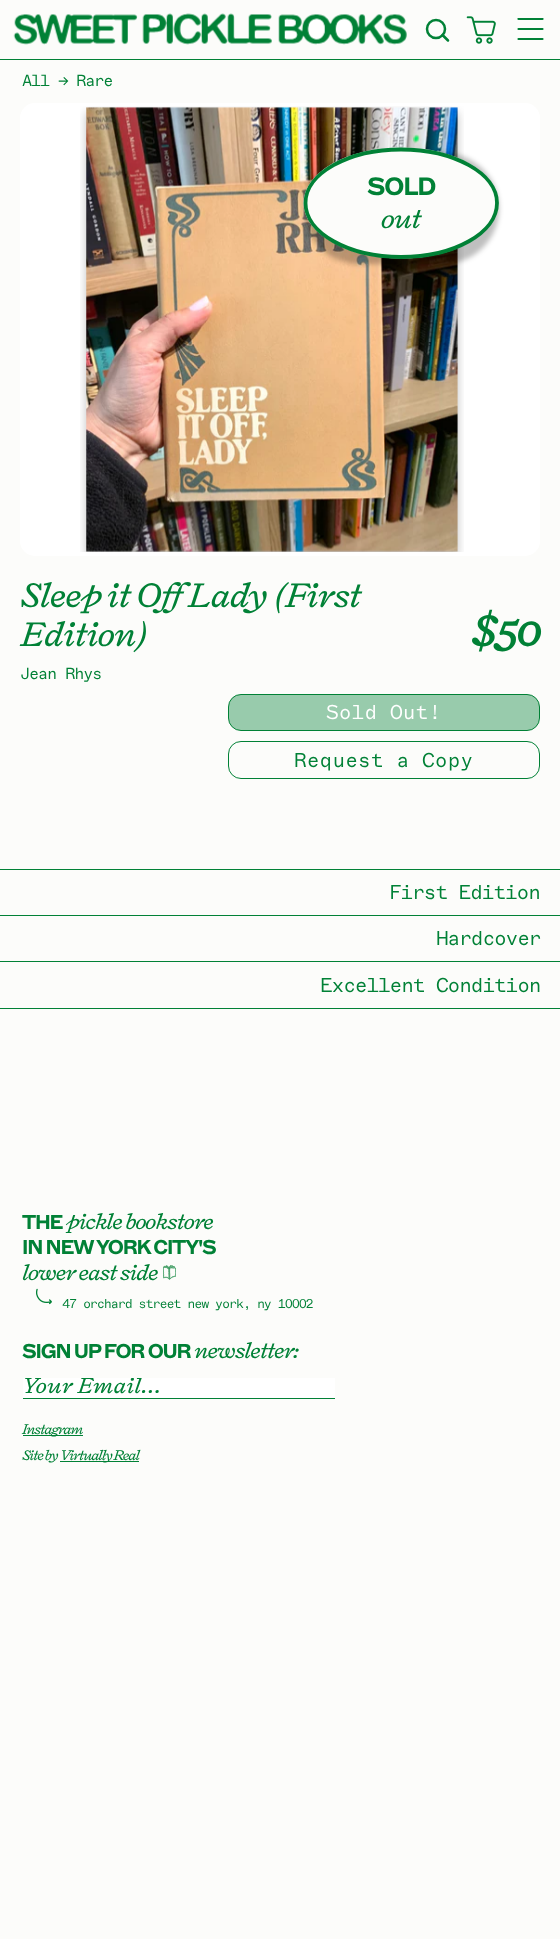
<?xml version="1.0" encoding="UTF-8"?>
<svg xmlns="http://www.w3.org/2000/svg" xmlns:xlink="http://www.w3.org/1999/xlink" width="560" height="1939">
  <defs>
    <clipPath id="clip1"><rect x="516" y="18" width="28" height="23" /></clipPath>
    <clipPath id="clip2"><rect x="23" y="1378" width="312" height="18" /></clipPath>
  </defs>
  <rect width="100%" height="100%" fill="#fcfcfa" />
  <rect y="59" width="560" height="1" fill="#018136" />
  <image x="13" y="13" width="394" height="32" xlink:href="image1.png" />
  <circle cx="436" cy="29" r="9" fill="none" stroke="#018136" stroke-width="2.5" />
  <path d="M 442.5 35 l 5.5 5.5" fill="none" stroke="#018136" stroke-width="2.5" stroke-linecap="round" />
  <image x="466" y="16" width="30" height="28" xlink:href="image2.png" />
  <g clip-path="url(#clip1)">
    <path d="M 518.5 19 h 24" fill="none" stroke="#018136" stroke-width="2.2" stroke-linecap="round" />
  </g>
  <path d="M 518.5 39 h 24 m -24 -10 h 24" fill="none" stroke="#018136" stroke-width="2.2" stroke-linecap="round" />
  <rect x="20" y="103" width="520" height="453" rx="15" fill="#ffffff" />
  <image x="80" y="106" width="384" height="446" xlink:href="image3.png" />
  <rect x="304" y="153" width="195" height="111" rx="55.5" fill="#000000" fill-opacity="0.25" filter="blur(2.5px)" />
  <ellipse cx="401" cy="203" rx="97.5" ry="55.5" fill="#fcfcfa" />
  <path d="M 401 149.5 c 53 0 96 24 96 53.5 c 0 30 -43 54 -96 54 c -52.5 0 -95.5 -24 -95.5 -54 c 0 -29.5 43 -53.5 95.5 -53.5 z" fill="none" stroke="#018136" stroke-width="3.8" />
  <rect x="228.5" y="694.5" width="311" height="36" rx="12.5" fill="#98cbac" stroke="#018136" />
  <rect x="228.5" y="741.5" width="311" height="37" rx="12.5" fill="none" stroke="#018136" />
  <rect y="1008" width="560" height="1" fill="#018136" />
  <rect y="869" width="560" height="1" fill="#018136" />
  <rect y="915" width="560" height="1" fill="#018136" />
  <rect y="961" width="560" height="1" fill="#018136" />
  <image x="163" y="1265" width="13" height="15" xlink:href="image4.png" />
  <image x="36" y="1288" width="16" height="17" xlink:href="image5.png" />
  <rect x="23" y="1378" width="312" height="20" fill="#ffffff" />
  <rect x="23" y="1398" width="312" height="1" fill="#018136" />
  <rect x="23" y="1435" width="60" height="1" fill="#018136" />
  <rect x="60" y="1461" width="79" height="1" fill="#018136" />
  <text x="22" y="86" style="font-family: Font; font-size: 16px; font-weight: 300; letter-spacing: -1.2px; fill: #018136">All → Rare</text>
  <text x="367" y="195" style="font-family: Font; font-size: 25px; font-weight: bold; letter-spacing: -1.2px; fill: #018136">SOLD</text>
  <text x="381" y="228" style="font-family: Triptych; font-size: 25px; font-style: italic; letter-spacing: -1.2px; fill: #018136">out</text>
  <text x="20" y="607" style="font-family: Triptych; font-size: 31.25px; font-style: italic; letter-spacing: -1.2px; fill: #018136">Sleep it Off Lady (First</text>
  <text x="20" y="646" style="font-family: Triptych; font-size: 31.25px; font-style: italic; letter-spacing: -1.2px; fill: #018136">Edition)</text>
  <text x="20" y="679" style="font-family: Font; font-size: 16px; font-weight: 300; letter-spacing: -1.2px; fill: #018136">Jean Rhys</text>
  <text x="471" y="646" style="font-family: Triptych; font-size: 39px; font-weight: bold; font-style: italic; letter-spacing: -1.2px; fill: #018136">$50</text>
  <text x="326" y="719" style="font-family: Font; font-size: 20px; font-weight: 300; fill: #ffffff">Sold Out!</text>
  <text x="294" y="767" style="font-family: Font; font-size: 20px; font-weight: 300; fill: #018136">Request a Copy</text>
  <text x="389" y="899" style="font-family: Font; font-size: 20px; font-weight: 300; letter-spacing: -1.2px; fill: #018136">First Edition</text>
  <text x="436" y="945" style="font-family: Font; font-size: 20px; font-weight: 300; letter-spacing: -1.2px; fill: #018136">Hardcover</text>
  <text x="320" y="992" style="font-family: Font; font-size: 20px; font-weight: 300; letter-spacing: -1.2px; fill: #018136">Excellent Condition</text>
  <text x="22" y="1229" style="font-family: Font; font-size: 20px; font-weight: bold; letter-spacing: -1.2px; fill: #018136">THE</text>
  <text x="66" y="1229" style="font-family: Triptych; font-size: 20px; font-style: italic; letter-spacing: -1.2px; fill: #018136">pickle bookstore</text>
  <text x="22" y="1254" style="font-family: Font; font-size: 20px; font-weight: bold; letter-spacing: -1.2px; fill: #018136">IN NEW YORK CITY'S</text>
  <text x="22" y="1280" style="font-family: Triptych; font-size: 20px; font-style: italic; letter-spacing: -1.2px; fill: #018136">lower east side</text>
  <text x="62" y="1308" style="font-family: Font; font-size: 12.75px; font-weight: 300; letter-spacing: -1.2px; fill: #018136">47 orchard street new york, ny 10002</text>
  <text x="22" y="1358" style="font-family: Font; font-size: 20px; font-weight: bold; letter-spacing: -1.2px; fill: #018136">SIGN UP FOR OUR</text>
  <text x="194" y="1358" style="font-family: Triptych; font-size: 20px; font-style: italic; letter-spacing: -1.2px; fill: #018136">newsletter:</text>
  <g clip-path="url(#clip2)">
    <text x="22" y="1393" style="font-family: Triptych; font-size: 20px; font-style: italic; fill: #018136">Your Email...</text>
  </g>
  <text x="22" y="1434" style="font-family: Triptych; font-size: 12.75px; font-style: italic; letter-spacing: -1.2px; fill: #018136">Instagram</text>
  <text x="22" y="1460" style="font-family: Triptych; font-size: 12.75px; font-style: italic; letter-spacing: -1.2px; fill: #018136">Site by</text>
  <text x="60" y="1460" style="font-family: Triptych; font-size: 12.75px; font-style: italic; letter-spacing: -1.2px; fill: #018136">Virtually Real</text>
</svg>
